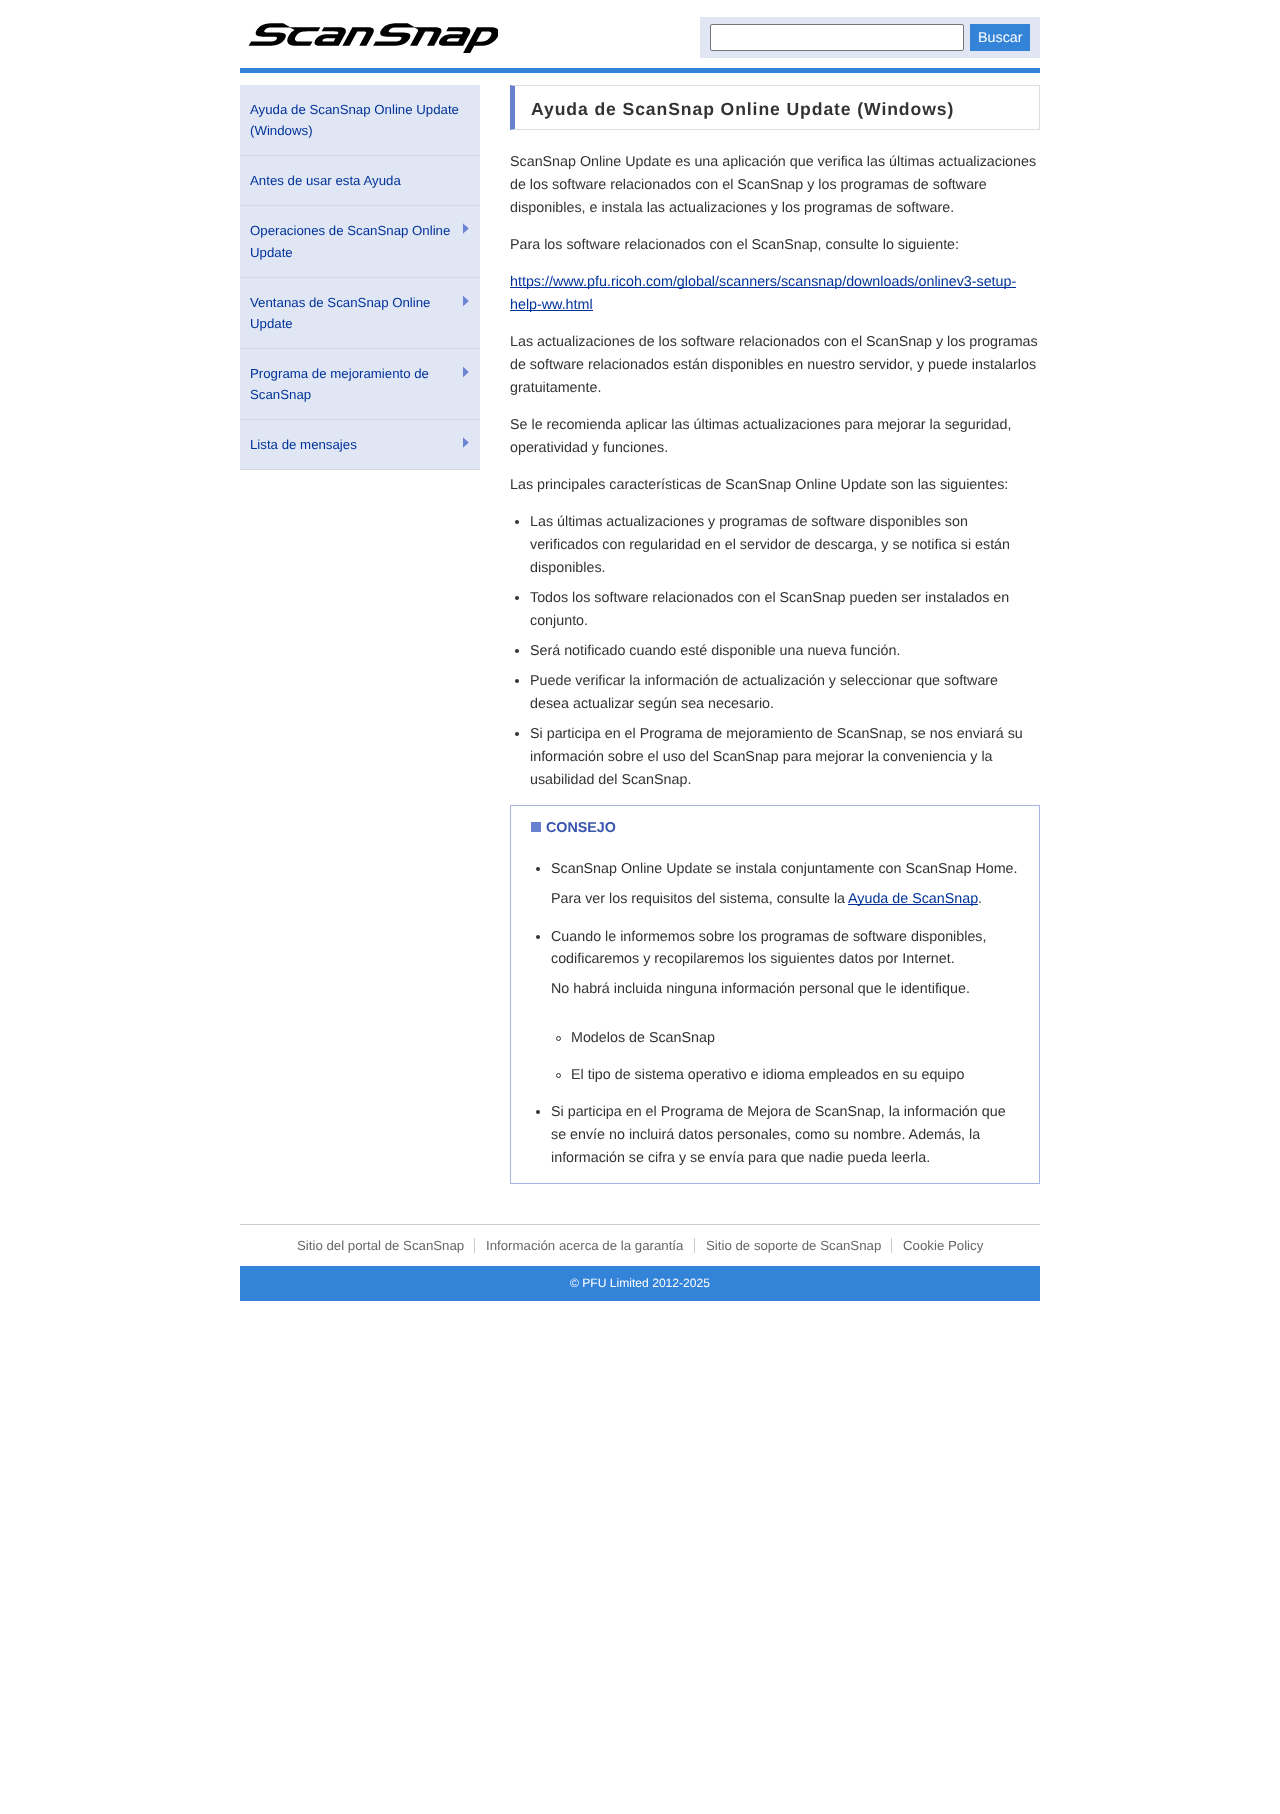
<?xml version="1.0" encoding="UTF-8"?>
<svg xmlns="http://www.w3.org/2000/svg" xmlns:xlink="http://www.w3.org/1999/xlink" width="1280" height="1814">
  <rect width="100%" height="100%" fill="#ffffff" />
  <rect x="240" y="68" width="800" height="5" fill="#3384d9" />
  <image x="248" y="23" width="250" height="30" xlink:href="image1.png" />
  <rect x="700" y="17" width="340" height="41" fill="#e1e6f5" />
  <rect x="710.5" y="24.5" width="253" height="26" rx="1.5" fill="#ffffff" stroke="#767676" />
  <rect x="970" y="24" width="60" height="27" fill="#3384d9" />
  <rect x="240" y="85" width="240" height="385" fill="#e1e6f5" />
  <path d="M 240 155.5 h 240" fill="none" stroke="#cccccc" stroke-dasharray="1 1" />
  <path d="M 240 205.5 h 240" fill="none" stroke="#cccccc" stroke-dasharray="1 1" />
  <image x="463" y="223" width="6" height="11" xlink:href="image2.png" />
  <path d="M 240 277.5 h 240" fill="none" stroke="#cccccc" stroke-dasharray="1 1" />
  <image x="463" y="296" width="6" height="10" xlink:href="image3.png" />
  <path d="M 240 348.5 h 240" fill="none" stroke="#cccccc" stroke-dasharray="1 1" />
  <image x="463" y="367" width="6" height="10" xlink:href="image3.png" />
  <path d="M 240 419.5 h 240" fill="none" stroke="#cccccc" stroke-dasharray="1 1" />
  <image x="463" y="437" width="6" height="11" xlink:href="image2.png" />
  <path d="M 240 469.5 h 240" fill="none" stroke="#cccccc" stroke-dasharray="1 1" />
  <path d="M 510 85 h 530 l -1 1 h -524 z" fill="#dddddd" />
  <rect x="1039" y="85" width="1" height="45" fill="#dddddd" />
  <path d="M 1040 130 h -530 l 5 -1 h 524 z" fill="#dddddd" />
  <path d="M 510 130 v -45 l 5 1 v 43 z" fill="#6881cf" />
  <rect x="510" y="287" width="506" height="1" fill="#003399" />
  <rect x="510" y="310" width="83" height="1" fill="#003399" />
  <circle cx="517" cy="522" r="2" fill="#333333" />
  <circle cx="517" cy="598" r="2" fill="#333333" />
  <circle cx="517" cy="651" r="2" fill="#333333" />
  <circle cx="517" cy="681" r="2" fill="#333333" />
  <circle cx="517" cy="734" r="2" fill="#333333" />
  <rect x="510.5" y="805.5" width="529" height="378" fill="none" stroke="#a5b4e2" />
  <rect x="531" y="822" width="10" height="10" fill="#6881cf" />
  <circle cx="538" cy="869" r="2" fill="#333333" />
  <rect x="848" y="904" width="130" height="1" fill="#003399" />
  <circle cx="538" cy="937" r="2" fill="#333333" />
  <circle cx="558.5" cy="1038.5" r="2" fill="none" stroke="#333333" />
  <circle cx="558.5" cy="1075.5" r="2" fill="none" stroke="#333333" />
  <circle cx="538" cy="1112" r="2" fill="#333333" />
  <rect x="240" y="1224" width="800" height="1" fill="#cccccc" />
  <rect x="474" y="1238" width="1" height="15" fill="#cccccc" />
  <rect x="694" y="1238" width="1" height="15" fill="#cccccc" />
  <rect x="891" y="1238" width="1" height="15" fill="#cccccc" />
  <rect x="240" y="1266" width="800" height="35" fill="#3384d9" />
  <text x="978" y="42" style="font-family: Liberation Sans; font-size: 14.3px; fill: #ffffff">Buscar</text>
  <text x="250" y="114" style="font-family: Liberation Sans; font-size: 13.25px; fill: #003399">Ayuda de ScanSnap Online Update</text>
  <text x="250" y="135" style="font-family: Liberation Sans; font-size: 13.25px; fill: #003399">(Windows)</text>
  <text x="250" y="185" style="font-family: Liberation Sans; font-size: 13.25px; fill: #003399">Antes de usar esta Ayuda</text>
  <text x="250" y="235" style="font-family: Liberation Sans; font-size: 13.25px; fill: #003399">Operaciones de ScanSnap Online</text>
  <text x="250" y="257" style="font-family: Liberation Sans; font-size: 13.25px; fill: #003399">Update</text>
  <text x="250" y="307" style="font-family: Liberation Sans; font-size: 13.25px; fill: #003399">Ventanas de ScanSnap Online</text>
  <text x="250" y="328" style="font-family: Liberation Sans; font-size: 13.25px; fill: #003399">Update</text>
  <text x="250" y="378" style="font-family: Liberation Sans; font-size: 13.25px; fill: #003399">Programa de mejoramiento de</text>
  <text x="250" y="399" style="font-family: Liberation Sans; font-size: 13.25px; fill: #003399">ScanSnap</text>
  <text x="250" y="449" style="font-family: Liberation Sans; font-size: 13.25px; fill: #003399">Lista de mensajes</text>
  <text x="531" y="115" style="font-family: Liberation Sans; font-size: 17.6px; font-weight: bold; letter-spacing: 0.9px; fill: #333333">Ayuda de ScanSnap Online Update (Windows)</text>
  <text x="510" y="166" style="font-family: Liberation Sans; font-size: 14.3px; fill: #333333">ScanSnap Online Update es una aplicación que verifica las últimas actualizaciones</text>
  <text x="510" y="189" style="font-family: Liberation Sans; font-size: 14.3px; fill: #333333">de los software relacionados con el ScanSnap y los programas de software</text>
  <text x="510" y="212" style="font-family: Liberation Sans; font-size: 14.3px; fill: #333333">disponibles, e instala las actualizaciones y los programas de software.</text>
  <text x="510" y="249" style="font-family: Liberation Sans; font-size: 14.3px; fill: #333333">Para los software relacionados con el ScanSnap, consulte lo siguiente:</text>
  <text x="510" y="286" style="font-family: Liberation Sans; font-size: 14.3px; fill: #003399">https://www.pfu.ricoh.com/global/scanners/scansnap/downloads/onlinev3-setup-</text>
  <text x="510" y="309" style="font-family: Liberation Sans; font-size: 14.3px; fill: #003399">help-ww.html</text>
  <text x="510" y="346" style="font-family: Liberation Sans; font-size: 14.3px; fill: #333333">Las actualizaciones de los software relacionados con el ScanSnap y los programas</text>
  <text x="510" y="369" style="font-family: Liberation Sans; font-size: 14.3px; fill: #333333">de software relacionados están disponibles en nuestro servidor, y puede instalarlos</text>
  <text x="510" y="392" style="font-family: Liberation Sans; font-size: 14.3px; fill: #333333">gratuitamente.</text>
  <text x="510" y="429" style="font-family: Liberation Sans; font-size: 14.3px; fill: #333333">Se le recomienda aplicar las últimas actualizaciones para mejorar la seguridad,</text>
  <text x="510" y="452" style="font-family: Liberation Sans; font-size: 14.3px; fill: #333333">operatividad y funciones.</text>
  <text x="510" y="489" style="font-family: Liberation Sans; font-size: 14.3px; fill: #333333">Las principales características de ScanSnap Online Update son las siguientes:</text>
  <text x="530" y="526" style="font-family: Liberation Sans; font-size: 14.3px; fill: #333333">Las últimas actualizaciones y programas de software disponibles son</text>
  <text x="530" y="549" style="font-family: Liberation Sans; font-size: 14.3px; fill: #333333">verificados con regularidad en el servidor de descarga, y se notifica si están</text>
  <text x="530" y="572" style="font-family: Liberation Sans; font-size: 14.3px; fill: #333333">disponibles.</text>
  <text x="530" y="602" style="font-family: Liberation Sans; font-size: 14.3px; fill: #333333">Todos los software relacionados con el ScanSnap pueden ser instalados en</text>
  <text x="530" y="625" style="font-family: Liberation Sans; font-size: 14.3px; fill: #333333">conjunto.</text>
  <text x="530" y="655" style="font-family: Liberation Sans; font-size: 14.3px; fill: #333333">Será notificado cuando esté disponible una nueva función.</text>
  <text x="530" y="685" style="font-family: Liberation Sans; font-size: 14.3px; fill: #333333">Puede verificar la información de actualización y seleccionar que software</text>
  <text x="530" y="708" style="font-family: Liberation Sans; font-size: 14.3px; fill: #333333">desea actualizar según sea necesario.</text>
  <text x="530" y="738" style="font-family: Liberation Sans; font-size: 14.3px; fill: #333333">Si participa en el Programa de mejoramiento de ScanSnap, se nos enviará su</text>
  <text x="530" y="761" style="font-family: Liberation Sans; font-size: 14.3px; fill: #333333">información sobre el uso del ScanSnap para mejorar la conveniencia y la</text>
  <text x="530" y="784" style="font-family: Liberation Sans; font-size: 14.3px; fill: #333333">usabilidad del ScanSnap.</text>
  <text x="546" y="832" style="font-family: Liberation Sans; font-size: 14.3px; font-weight: bold; fill: #3755ac">CONSEJO</text>
  <text x="551" y="873" style="font-family: Liberation Sans; font-size: 14.3px; fill: #333333">ScanSnap Online Update se instala conjuntamente con ScanSnap Home.</text>
  <text x="551" y="903" style="font-family: Liberation Sans; font-size: 14.3px; fill: #333333">Para ver los requisitos del sistema, consulte la</text>
  <text x="848" y="903" style="font-family: Liberation Sans; font-size: 14.3px; fill: #003399">Ayuda de ScanSnap</text>
  <text x="978" y="903" style="font-family: Liberation Sans; font-size: 14.3px; fill: #333333">.</text>
  <text x="551" y="941" style="font-family: Liberation Sans; font-size: 14.3px; fill: #333333">Cuando le informemos sobre los programas de software disponibles,</text>
  <text x="551" y="963" style="font-family: Liberation Sans; font-size: 14.3px; fill: #333333">codificaremos y recopilaremos los siguientes datos por Internet.</text>
  <text x="551" y="993" style="font-family: Liberation Sans; font-size: 14.3px; fill: #333333">No habrá incluida ninguna información personal que le identifique.</text>
  <text x="571" y="1042" style="font-family: Liberation Sans; font-size: 14.3px; fill: #333333">Modelos de ScanSnap</text>
  <text x="571" y="1079" style="font-family: Liberation Sans; font-size: 14.3px; fill: #333333">El tipo de sistema operativo e idioma empleados en su equipo</text>
  <text x="551" y="1116" style="font-family: Liberation Sans; font-size: 14.3px; fill: #333333">Si participa en el Programa de Mejora de ScanSnap, la información que</text>
  <text x="551" y="1139" style="font-family: Liberation Sans; font-size: 14.3px; fill: #333333">se envíe no incluirá datos personales, como su nombre. Además, la</text>
  <text x="551" y="1162" style="font-family: Liberation Sans; font-size: 14.3px; fill: #333333">información se cifra y se envía para que nadie pueda leerla.</text>
  <text x="297" y="1250" style="font-family: Liberation Sans; font-size: 13.25px; fill: #666666">Sitio del portal de ScanSnap</text>
  <text x="486" y="1250" style="font-family: Liberation Sans; font-size: 13.25px; fill: #666666">Información acerca de la garantía</text>
  <text x="706" y="1250" style="font-family: Liberation Sans; font-size: 13.25px; fill: #666666">Sitio de soporte de ScanSnap</text>
  <text x="903" y="1250" style="font-family: Liberation Sans; font-size: 13.25px; fill: #666666">Cookie Policy</text>
  <text x="570" y="1287" style="font-family: Liberation Sans; font-size: 12.1px; fill: #ffffff">© PFU Limited 2012-2025</text>
</svg>
